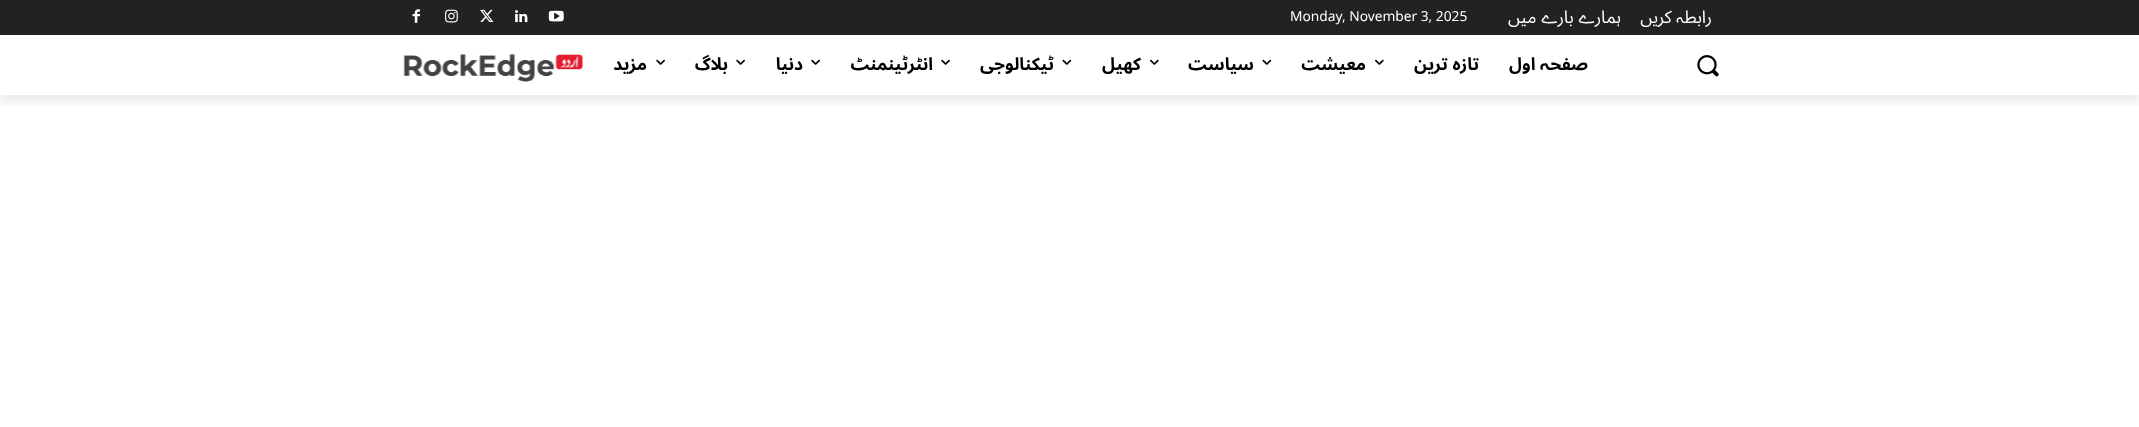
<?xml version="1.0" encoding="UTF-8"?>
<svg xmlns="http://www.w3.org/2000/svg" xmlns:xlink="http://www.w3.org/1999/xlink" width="2139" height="427">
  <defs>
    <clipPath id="clip1"><rect x="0" y="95" width="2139" height="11" /></clipPath>
  </defs>
  <rect width="100%" height="100%" fill="#ffffff" />
  <rect width="2139" height="35" fill="#222222" />
  <image x="548" y="10" width="16" height="12" xlink:href="image1.png" />
  <image x="515" y="10" width="13" height="13" xlink:href="image2.png" />
  <image x="480" y="9" width="14" height="13" xlink:href="image3.png" />
  <image x="445" y="9" width="13" height="14" xlink:href="image4.png" />
  <image x="412" y="9" width="8" height="14" xlink:href="image5.png" />
  <image x="403" y="54" width="180" height="28" xlink:href="image10.png" />
  <g clip-path="url(#clip1)">
    <rect y="8" width="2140" height="95" fill="#000000" fill-opacity="0.08" filter="blur(5px)" />
  </g>
  <image x="1697" y="55" width="22" height="22" xlink:href="image6.png" />
  <image x="1375" y="59" width="9" height="6" xlink:href="image7.png" />
  <image x="1262" y="59" width="10" height="6" xlink:href="image8.png" />
  <image x="1150" y="59" width="9" height="6" xlink:href="image7.png" />
  <image x="1062" y="59" width="10" height="6" xlink:href="image8.png" />
  <image x="941" y="59" width="9" height="6" xlink:href="image9.png" />
  <image x="811" y="59" width="9" height="6" xlink:href="image9.png" />
  <image x="736" y="59" width="9" height="6" xlink:href="image9.png" />
  <image x="656" y="59" width="9" height="6" xlink:href="image9.png" />
  <text x="1712" y="23" style="font-family: Noto Sans Arabic; font-size: 17.5px; direction: rtl; fill: #ffffff">رابطہ کریں</text>
  <text x="1621" y="23" style="font-family: Noto Sans Arabic; font-size: 17.5px; direction: rtl; fill: #ffffff">ہمارے بارے میں</text>
  <text x="1290" y="21" style="font-family: Noto Sans Arabic; font-size: 13.75px; fill: #ffffff">Monday, November 3, 2025</text>
  <text x="1588" y="70" style="font-family: Noto Sans Arabic; font-size: 17.5px; font-weight: bold; direction: rtl; fill: #000000">صفحہ اول</text>
  <text x="1479" y="70" style="font-family: Noto Sans Arabic; font-size: 17.5px; font-weight: bold; direction: rtl; fill: #000000">تازہ ترین</text>
  <text x="1366" y="70" style="font-family: Noto Sans Arabic; font-size: 17.5px; font-weight: bold; direction: rtl; fill: #000000">معیشت</text>
  <text x="1254" y="70" style="font-family: Noto Sans Arabic; font-size: 17.5px; font-weight: bold; direction: rtl; fill: #000000">سیاست</text>
  <text x="1141" y="70" style="font-family: Noto Sans Arabic; font-size: 17.5px; font-weight: bold; direction: rtl; fill: #000000">کھیل</text>
  <text x="1054" y="70" style="font-family: Noto Sans Arabic; font-size: 17.5px; font-weight: bold; direction: rtl; fill: #000000">ٹیکنالوجی</text>
  <text x="933" y="70" style="font-family: Noto Sans Arabic; font-size: 17.5px; font-weight: bold; direction: rtl; fill: #000000">انٹرٹینمنٹ</text>
  <text x="803" y="70" style="font-family: Noto Sans Arabic; font-size: 17.5px; font-weight: bold; direction: rtl; fill: #000000">دنیا</text>
  <text x="728" y="70" style="font-family: Noto Sans Arabic; font-size: 17.5px; font-weight: bold; direction: rtl; fill: #000000">بلاگ</text>
  <text x="647" y="70" style="font-family: Noto Sans Arabic; font-size: 17.5px; font-weight: bold; direction: rtl; fill: #000000">مزید</text>
</svg>
